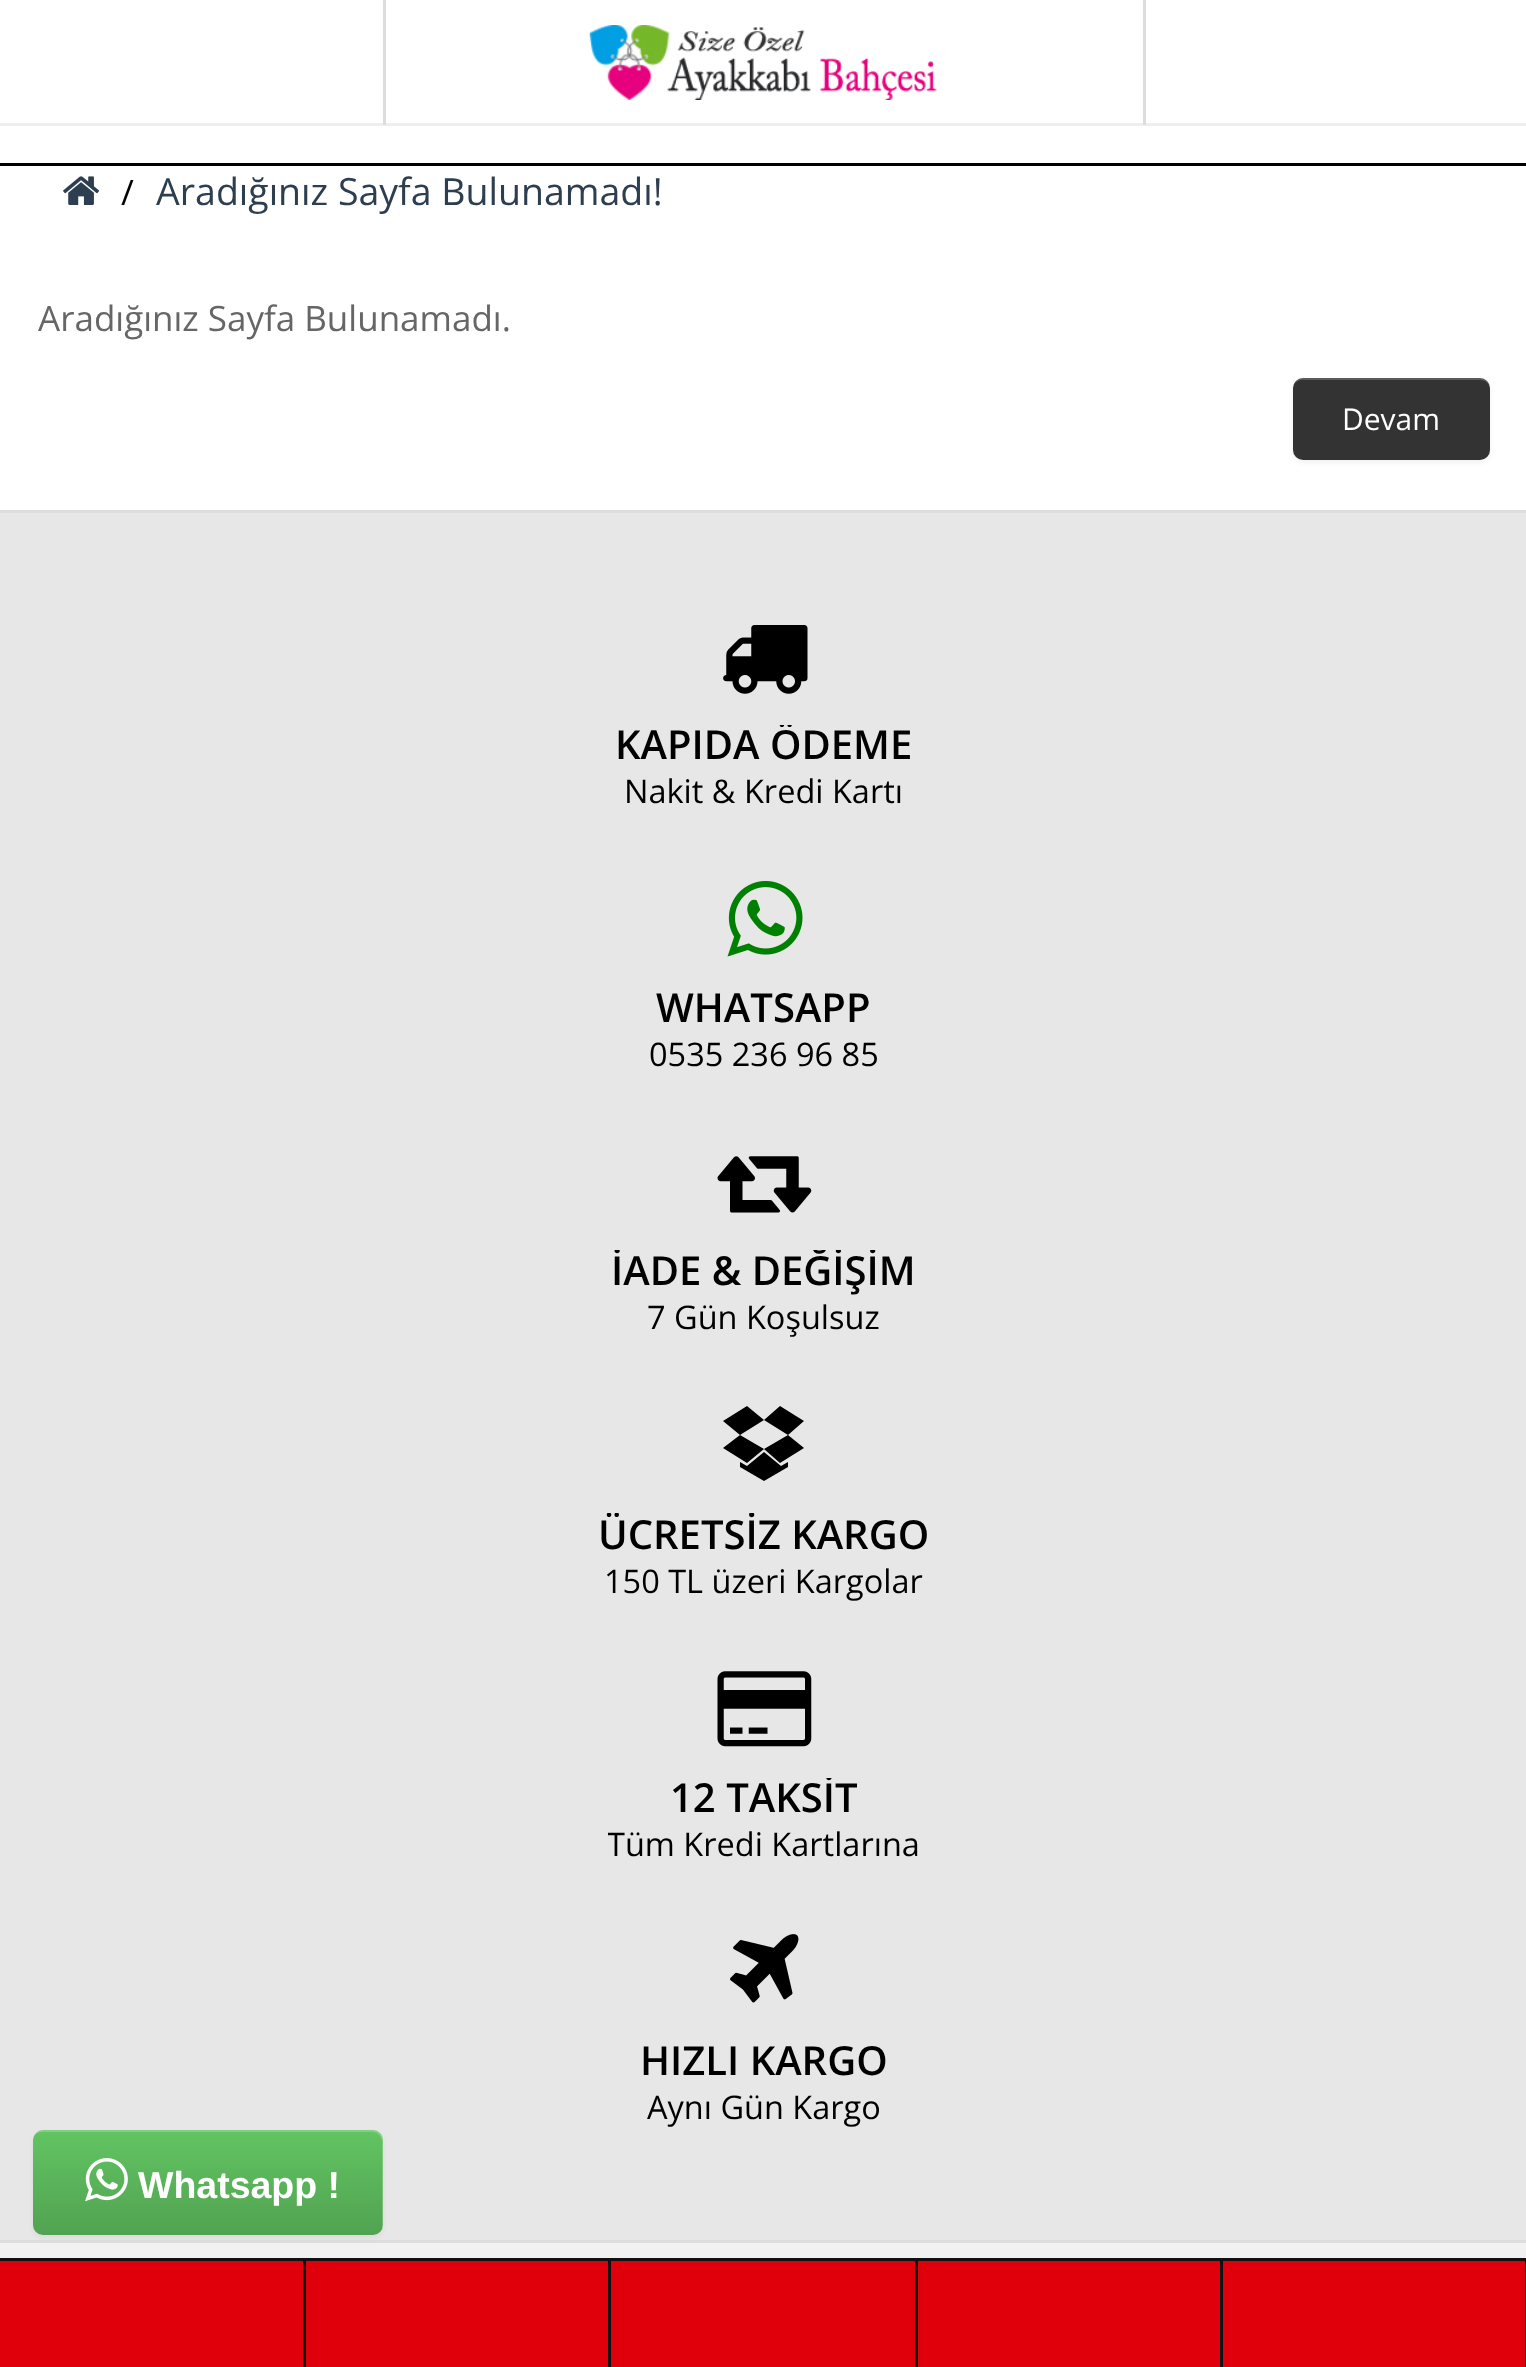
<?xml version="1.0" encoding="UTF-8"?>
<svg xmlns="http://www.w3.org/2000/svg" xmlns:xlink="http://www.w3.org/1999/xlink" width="1526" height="2367">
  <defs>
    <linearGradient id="g1" gradientUnits="userSpaceOnUse" x1="208" y1="2130" x2="208" y2="2235"><stop offset="0" stop-color="#62c462" /><stop offset="1" stop-color="#51a351" /></linearGradient>
    <clipPath id="clip1"><rect x="615" y="725" width="298" height="43" /></clipPath>
    <clipPath id="clip2"><rect x="613" y="1250" width="302" height="45" /></clipPath>
    <clipPath id="clip3"><rect x="598" y="1513" width="332" height="45" /></clipPath>
    <clipPath id="clip4"><rect x="608" y="1778" width="312" height="42" /></clipPath>
    <clipPath id="clip5"><rect x="608" y="1778" width="312" height="90" /></clipPath>
  </defs>
  <rect width="100%" height="100%" fill="#ffffff" />
  <rect y="123" width="1526" height="3" fill="#eeeeee" />
  <rect x="1143" width="3" height="125" fill="#dddddd" />
  <rect x="383" width="3" height="125" fill="#dddddd" />
  <image x="589" y="25" width="348" height="75" xlink:href="image1.png" />
  <rect y="163" width="1526" height="3" fill="#000000" />
  <image x="63" y="176" width="36" height="29" xlink:href="image2.png" />
  <rect x="1293" y="380" width="197" height="83" rx="10" fill="#000000" fill-opacity="0.05" filter="blur(2.5px)" />
  <rect x="1293" y="378" width="197" height="82" rx="10" fill="#333333" />
  <path d="M 1302 380 h 178 c 6 0 10 4 10 10 v -2 c 0 -6 -4 -10 -10 -10 h -177 c -4 0 -8 3 -9 7 c 1 -3 5 -5 8 -5 z" fill="#ffffff" fill-opacity="0.2" />
  <rect y="2243" width="1526" height="15" fill="#f1f1f1" />
  <rect y="513" width="1526" height="1727" fill="#e7e7e7" />
  <rect y="2240" width="1526" height="3" fill="#dddddd" />
  <rect x="33" y="2133" width="350" height="105" rx="10" fill="#000000" fill-opacity="0.05" filter="blur(2.5px)" />
  <rect x="33" y="2130" width="350" height="105" rx="10" fill="url(#g1)" />
  <path d="M 42 2132 h 330 c 6 0 10 5 10 10 v 88 c 1 -2 1 -3 1 -5 v -85 c 0 -6 -4 -10 -10 -10 h -330 c -5 0 -9 3 -10 7 c 2 -3 6 -5 9 -5 z" fill="#ffffff" fill-opacity="0.2" />
  <image x="85" y="2158" width="43" height="44" xlink:href="image3.png" />
  <rect y="510" width="1526" height="3" fill="#dddddd" />
  <image x="723" y="625" width="85" height="69" xlink:href="image4.png" />
  <image x="727" y="880" width="76" height="77" xlink:href="image5.png" />
  <image x="717" y="1156" width="95" height="57" xlink:href="image6.png" />
  <path d="M 740 1435 l 24 14 l -17 14 l -24 -15 z m 48 27 v 5 l -24 14 l -24 -14 v -5 l 7 4 l 17 -14 l 17 14 z m -41 -56 l 17 14 l -24 15 l -17 -14 z m 41 29 l 16 13 l -24 15 l -16 -14 z m -8 -29 l 24 15 l -16 14 l -24 -15 z" fill="#000000" />
  <image x="717" y="1671" width="95" height="76" xlink:href="image7.png" />
  <image x="730" y="1934" width="69" height="69" xlink:href="image8.png" />
  <rect y="2261" width="1525" height="106" fill="#df000c" />
  <rect y="2258" width="1526" height="3" fill="#111111" />
  <rect x="303" y="2260" width="3" height="107" fill="#111111" />
  <rect x="608" y="2260" width="3" height="107" fill="#111111" />
  <rect x="915" y="2260" width="3" height="107" fill="#111111" />
  <rect x="1220" y="2260" width="3" height="107" fill="#111111" />
  <rect x="1525" y="2260" width="1" height="107" fill="#111111" />
  <text x="121" y="205" style="font-family: Open Sans; font-size: 35px; fill: #000000">/</text>
  <text x="156" y="205" style="font-family: Open Sans; font-size: 37.5px; fill: #2c3e50">Aradığınız Sayfa Bulunamadı!</text>
  <text x="38" y="331" style="font-family: Open Sans; font-size: 35px; fill: #666666">Aradığınız Sayfa Bulunamadı.</text>
  <text x="1342" y="430" style="font-family: Open Sans; font-size: 30px; fill: #ffffff">Devam</text>
  <text x="138" y="2198" style="font-family: Liberation Sans; font-size: 37.5px; font-weight: bold; fill: #ffffff">Whatsapp !</text>
  <g clip-path="url(#clip1)">
    <text x="615" y="759" style="font-family: Open Sans; font-size: 40px; font-weight: 600; fill: #000000">KAPIDA ÖDEME</text>
  </g>
  <text x="624" y="803" style="font-family: Open Sans; font-size: 32.5px; fill: #000000">Nakit &amp; Kredi Kartı</text>
  <text x="656" y="1022" style="font-family: Open Sans; font-size: 40px; font-weight: 600; fill: #000000">WHATSAPP</text>
  <text x="649" y="1066" style="font-family: Open Sans; font-size: 32.5px; fill: #000000">0535 236 96 85</text>
  <g clip-path="url(#clip2)">
    <text x="611" y="1285" style="font-family: Open Sans; font-size: 40px; font-weight: 600; fill: #000000">İADE &amp; DEĞİŞİM</text>
  </g>
  <text x="647" y="1329" style="font-family: Open Sans; font-size: 32.5px; fill: #000000">7 Gün Koşulsuz</text>
  <g clip-path="url(#clip3)">
    <text x="598" y="1549" style="font-family: Open Sans; font-size: 40px; font-weight: 600; fill: #000000">ÜCRETSİZ KARGO</text>
  </g>
  <text x="604" y="1593" style="font-family: Open Sans; font-size: 32.5px; fill: #000000">150 TL üzeri Kargolar</text>
  <g clip-path="url(#clip4)">
    <text x="670" y="1812" style="font-family: Open Sans; font-size: 40px; font-weight: 600; fill: #000000">12 TAKSİT</text>
  </g>
  <g clip-path="url(#clip5)">
    <text x="607" y="1856" style="font-family: Open Sans; font-size: 32.5px; fill: #000000">Tüm Kredi Kartlarına</text>
  </g>
  <text x="640" y="2075" style="font-family: Open Sans; font-size: 40px; font-weight: 600; fill: #000000">HIZLI KARGO</text>
  <text x="647" y="2119" style="font-family: Open Sans; font-size: 32.5px; fill: #000000">Aynı Gün Kargo</text>
</svg>
